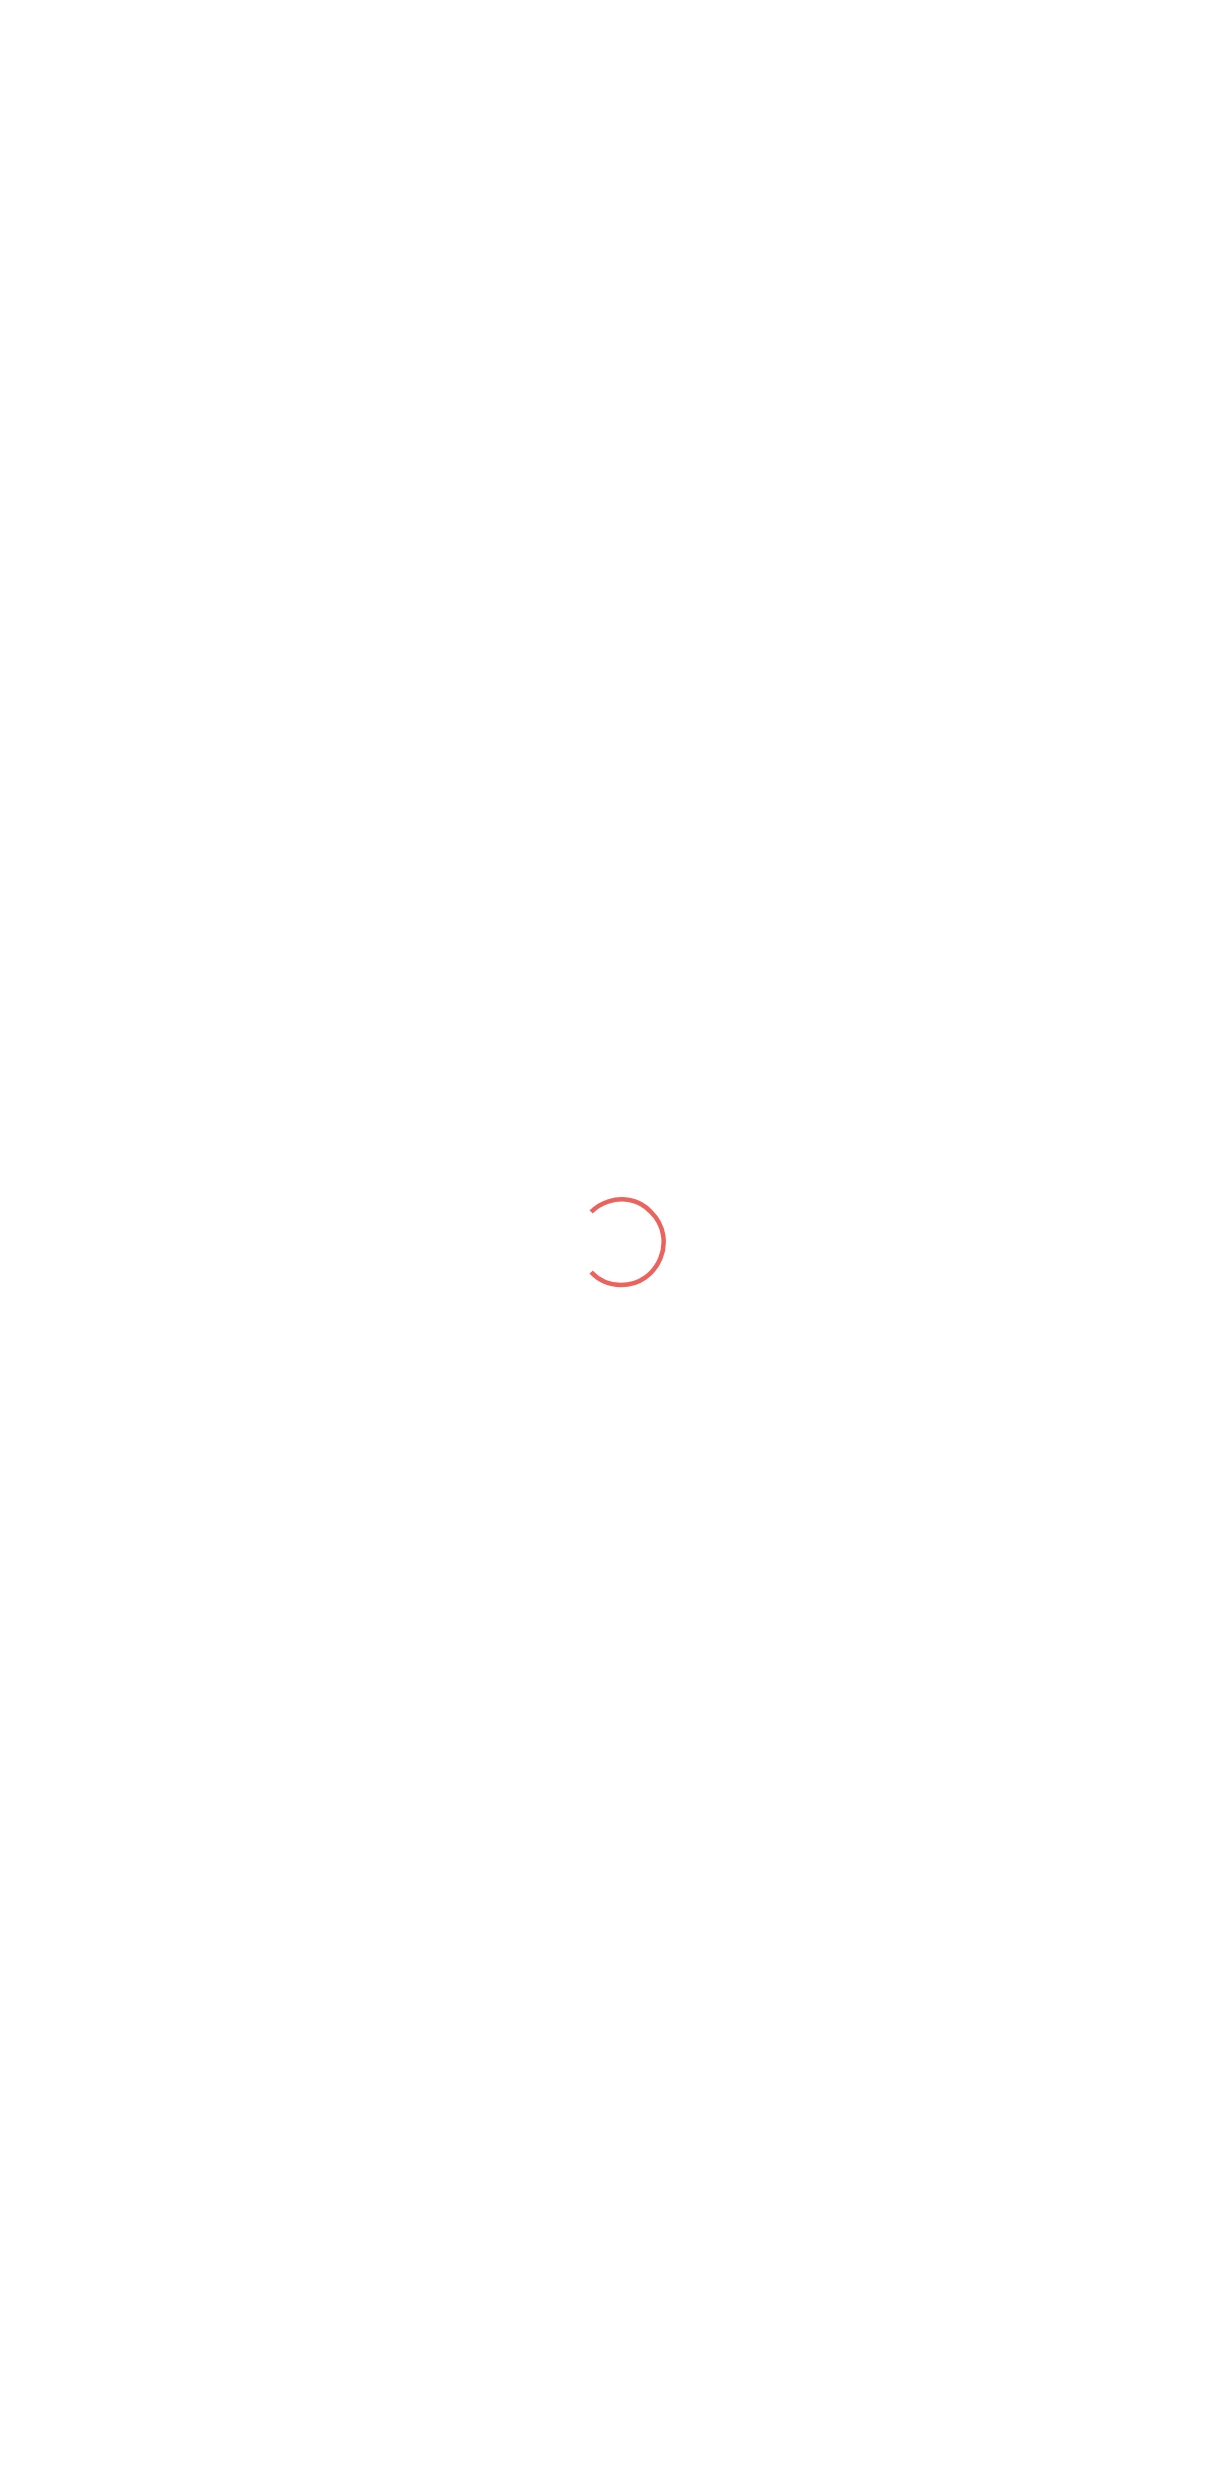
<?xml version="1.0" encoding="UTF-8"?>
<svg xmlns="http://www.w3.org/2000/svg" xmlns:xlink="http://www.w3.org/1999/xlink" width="1232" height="2475">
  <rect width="100%" height="100%" fill="#ffffff" />
  <path d="M 591 1212 c 10 -10 24.5 -14.5 38.5 -12 c 8 1.5 16 6 21.5 12 c 27 26.5 8 73 -30 73 c -11.5 0 -22.5 -5 -30 -13" fill="none" stroke="#ec635e" stroke-width="4.5" />
  <path d="M 591 1272 c -16.5 -16 -16.5 -44 0 -60" fill="none" stroke="#ffffff" stroke-width="4.5" />
</svg>
